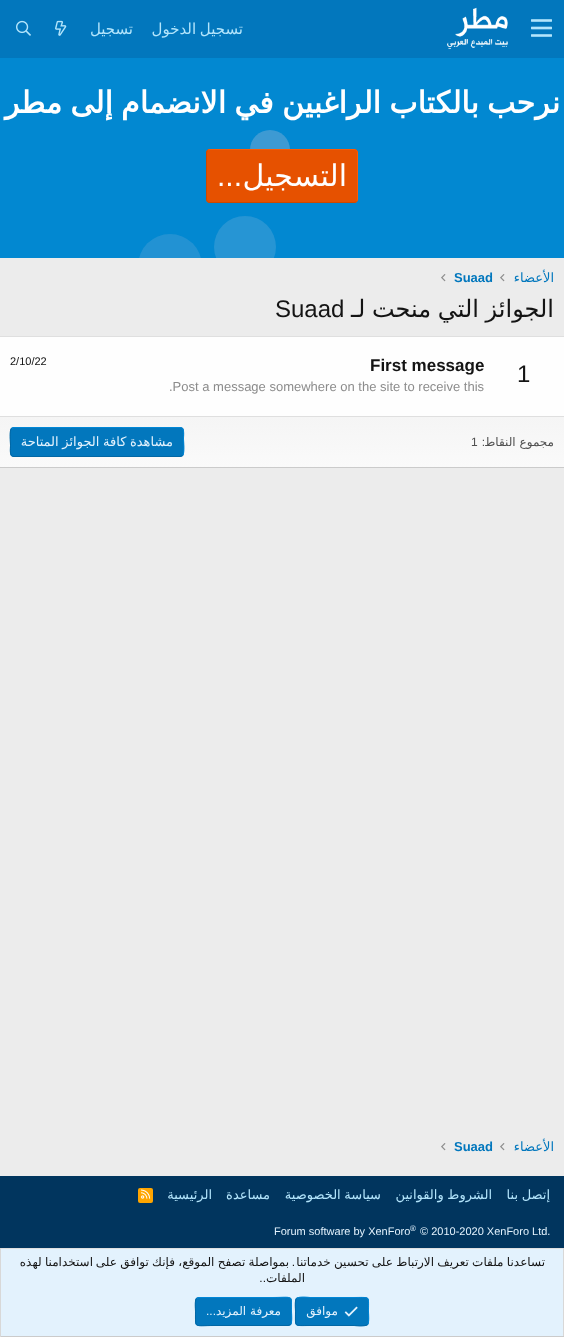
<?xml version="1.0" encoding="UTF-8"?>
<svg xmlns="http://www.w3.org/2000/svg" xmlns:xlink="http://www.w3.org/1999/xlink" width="564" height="1337">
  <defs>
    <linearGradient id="g1" gradientUnits="userSpaceOnUse" x1="282" y1="417" x2="282" y2="467"><stop offset="0" stop-color="#f5f5f5" /><stop offset="1" stop-color="#fafafa" /></linearGradient>
  </defs>
  <rect width="100%" height="100%" fill="#ececec" />
  <rect width="564" height="58" fill="#0277bd" />
  <image x="531" y="19" width="21" height="18" xlink:href="image1.png" />
  <image x="447" y="7" width="61" height="42" xlink:href="image2.png" />
  <image x="55" y="20" width="12" height="16" xlink:href="image3.png" />
  <image x="16" y="20" width="15" height="16" xlink:href="image4.png" />
  <rect y="58" width="564" height="200" fill="#0288d1" />
  <image x="139" y="130" width="151" height="128" xlink:href="image5.png" />
  <rect x="206" y="149" width="152" height="54" rx="4" fill="#e65100" />
  <path d="M 207.5 150.5 c 0.5 -0.5 1.5 -1 2.5 -1 h 144 c 1 0 2 0.5 2.5 1 c 0.5 0.5 1 1.5 1 2.5 v 46 c 0 1 -0.5 2 -1 2.5" fill="none" stroke="#ff5a00" />
  <path d="M 356.5 201.5 c -0.5 0.5 -1.5 1 -2.5 1 h -144 c -1 0 -2 -0.5 -2.5 -1 c -0.5 -0.5 -1 -1.5 -1 -2.5 v -46 c 0 -1 0.5 -2 1 -2.5" fill="none" stroke="#cd4800" />
  <image x="500" y="274" width="5" height="8" xlink:href="image6.png" />
  <image x="441" y="274" width="5" height="8" xlink:href="image6.png" />
  <rect y="337" width="564" height="79" fill="#fefefe" />
  <rect y="336" width="564" height="1" fill="#dfdfdf" />
  <rect y="467" width="564" height="1" fill="#cbcbcb" />
  <rect y="417" width="564" height="50" fill="url(#g1)" />
  <rect y="416" width="564" height="1" fill="#dfdfdf" />
  <rect x="10" y="427" width="174" height="30" rx="4" fill="#0277bd" />
  <path d="M 11.5 428.5 l 2.5 -1 h 166 c 5 0 3.5 8 3.5 11 c 0 3 1.5 14.5 -1 17" fill="none" stroke="#0287d6" />
  <path d="M 182.5 455.5 l -2.5 1 h -166 c -5 0 -3.5 -8 -3.5 -11 c 0 -3 -1.5 -14.5 1 -17" fill="none" stroke="#0267a4" />
  <image x="500" y="1143" width="5" height="8" xlink:href="image6.png" />
  <image x="441" y="1143" width="5" height="8" xlink:href="image6.png" />
  <rect y="1176" width="564" height="72" fill="#01355e" />
  <rect x="138" y="1188" width="15" height="15" rx="2" fill="#ffa500" />
  <image x="141" y="1189" width="10" height="10" xlink:href="image7.png" />
  <rect x="1" y="1249" width="562" height="87" fill="#e3f2fd" />
  <rect y="1248" width="564" height="1" fill="#dfdfdf" />
  <rect x="563" y="1248" width="1" height="89" fill="#d8d8d8" />
  <rect y="1336" width="564" height="1" fill="#cbcbcb" />
  <rect y="1248" width="1" height="89" fill="#d8d8d8" />
  <rect x="295" y="1297" width="74" height="29" rx="4" fill="#0277bd" />
  <path d="M 296.5 1298.5 c 2.5 -2.5 13 -1 13.5 -1 h 44 c 16.5 0 14.5 -2 14.5 14 c 0 2.5 1 11 -1 13" fill="none" stroke="#0287d6" />
  <path d="M 367.5 1324.5 c -2.5 2.5 -13 1 -13.5 1 h -44 c -16.5 0 -14.5 2 -14.5 -14 c 0 -2.5 -1 -11 1 -13" fill="none" stroke="#0267a4" />
  <image x="344" y="1306" width="14" height="11" xlink:href="image8.png" />
  <rect x="195" y="1297" width="97" height="29" rx="4" fill="#0277bd" />
  <path d="M 196.5 1298.5 l 2.5 -1 h 74 c 20 0 18.5 -3.5 18.5 14 c 0 2.5 1 11 -1 13" fill="none" stroke="#0287d6" />
  <path d="M 290.5 1324.5 l -2.5 1 h -74 c -20 0 -18.5 3.5 -18.5 -14 c 0 -2.5 -1 -11 1 -13" fill="none" stroke="#0267a4" />
  <text x="243" y="34" word-spacing="-1" style="font-family: DejaVu Sans; font-size: 15px; direction: rtl; fill: #b3e5fc">تسجيل الدخول</text>
  <text x="133" y="34" style="font-family: DejaVu Sans; font-size: 15px; direction: rtl; fill: #b3e5fc">تسجيل</text>
  <text x="560" y="113" word-spacing="-1.25" style="font-family: DejaVu Sans; font-size: 30px; font-weight: bold; direction: rtl; fill: #ffffff">نرحب بالكتاب الراغبين في الانضمام إلى مطر</text>
  <text x="347" y="186" style="font-family: DejaVu Sans; font-size: 30px; direction: rtl; fill: #ffffff">التسجيل</text>
  <text x="242" y="186" style="font-family: Liberation Sans; font-size: 30px; direction: rtl; fill: #ffffff">...</text>
  <text x="554" y="282" style="font-family: DejaVu Sans; font-size: 13px; direction: rtl; fill: #0277bd">الأعضاء</text>
  <text x="454" y="282" style="font-family: Liberation Sans; font-size: 13px; font-weight: bold; fill: #0277bd">Suaad</text>
  <text x="554" y="317" word-spacing="-1" style="font-family: DejaVu Sans; font-size: 24px; direction: rtl; fill: #141414">الجوائز التي منحت لـ</text>
  <text x="275" y="317" style="font-family: Liberation Sans; font-size: 24px; fill: #141414">Suaad</text>
  <text x="517" y="382" style="font-family: Liberation Sans; font-size: 24px; fill: #141414">1</text>
  <text x="370" y="371" style="font-family: Liberation Sans; font-size: 17px; font-weight: bold; fill: #141414">First message</text>
  <text x="10" y="365" style="font-family: Liberation Sans; font-size: 11px; fill: #141414">2/10/22</text>
  <text x="169" y="391" style="font-family: Liberation Sans; font-size: 13px; fill: #8c8c8c">.Post a message somewhere on the site to receive this</text>
  <text x="554" y="446" style="font-family: DejaVu Sans; font-size: 12px; direction: rtl; fill: #505050">مجموع النقاط</text>
  <text x="485" y="446" style="font-family: Liberation Sans; font-size: 12px; direction: rtl; fill: #505050">:</text>
  <text x="471" y="446" style="font-family: Liberation Sans; font-size: 12px; fill: #505050">1</text>
  <text x="173" y="446" word-spacing="-0.5" style="font-family: DejaVu Sans; font-size: 13px; direction: rtl; fill: #e3f2fd">مشاهدة كافة الجوائز المتاحة</text>
  <text x="554" y="1151" style="font-family: DejaVu Sans; font-size: 13px; direction: rtl; fill: #0277bd">الأعضاء</text>
  <text x="454" y="1151" style="font-family: Liberation Sans; font-size: 13px; font-weight: bold; fill: #0277bd">Suaad</text>
  <text x="550" y="1199" word-spacing="-0.5" style="font-family: DejaVu Sans; font-size: 13px; direction: rtl; fill: #b3e5fc">إتصل بنا</text>
  <text x="492" y="1199" word-spacing="-0.5" style="font-family: DejaVu Sans; font-size: 13px; direction: rtl; fill: #b3e5fc">الشروط والقوانين</text>
  <text x="381" y="1199" word-spacing="-0.5" style="font-family: DejaVu Sans; font-size: 13px; direction: rtl; fill: #b3e5fc">سياسة الخصوصية</text>
  <text x="270" y="1199" style="font-family: DejaVu Sans; font-size: 13px; direction: rtl; fill: #b3e5fc">مساعدة</text>
  <text x="212" y="1199" style="font-family: DejaVu Sans; font-size: 13px; direction: rtl; fill: #b3e5fc">الرئيسية</text>
  <text x="420" y="1235" style="font-family: Liberation Sans; font-size: 11px; fill: #e3f2fd">© 2010-2020 XenForo Ltd.</text>
  <text x="410" y="1231" style="font-family: Liberation Sans; font-size: 8px; fill: #e3f2fd">®</text>
  <text x="274" y="1235" style="font-family: Liberation Sans; font-size: 11px; fill: #e3f2fd">Forum software by XenForo</text>
  <text x="545" y="1266" word-spacing="-0.5" style="font-family: DejaVu Sans; font-size: 12px; direction: rtl; fill: #141414">تساعدنا ملفات تعريف الارتباط على تحسين خدماتنا</text>
  <text x="295" y="1266" style="font-family: Liberation Sans; font-size: 12px; direction: rtl; fill: #141414">.</text>
  <text x="289" y="1266" word-spacing="-0.5" style="font-family: DejaVu Sans; font-size: 12px; direction: rtl; fill: #141414">بمواصلة تصفح الموقع، فإنك توافق على</text>
  <text x="93" y="1266" word-spacing="-0.5" style="font-family: DejaVu Sans; font-size: 12px; direction: rtl; fill: #141414">استخدامنا لهذه</text>
  <text x="305" y="1282" style="font-family: DejaVu Sans; font-size: 12px; direction: rtl; fill: #141414">الملفات</text>
  <text x="266" y="1282" style="font-family: Liberation Sans; font-size: 12px; direction: rtl; fill: #141414">..</text>
  <text x="338" y="1315" style="font-family: DejaVu Sans; font-size: 12px; direction: rtl; fill: #e3f2fd">موافق</text>
  <text x="281" y="1315" style="font-family: DejaVu Sans; font-size: 12px; direction: rtl; fill: #e3f2fd">معرفة المزيد</text>
  <text x="216" y="1315" style="font-family: Liberation Sans; font-size: 12px; direction: rtl; fill: #e3f2fd">...</text>
</svg>
